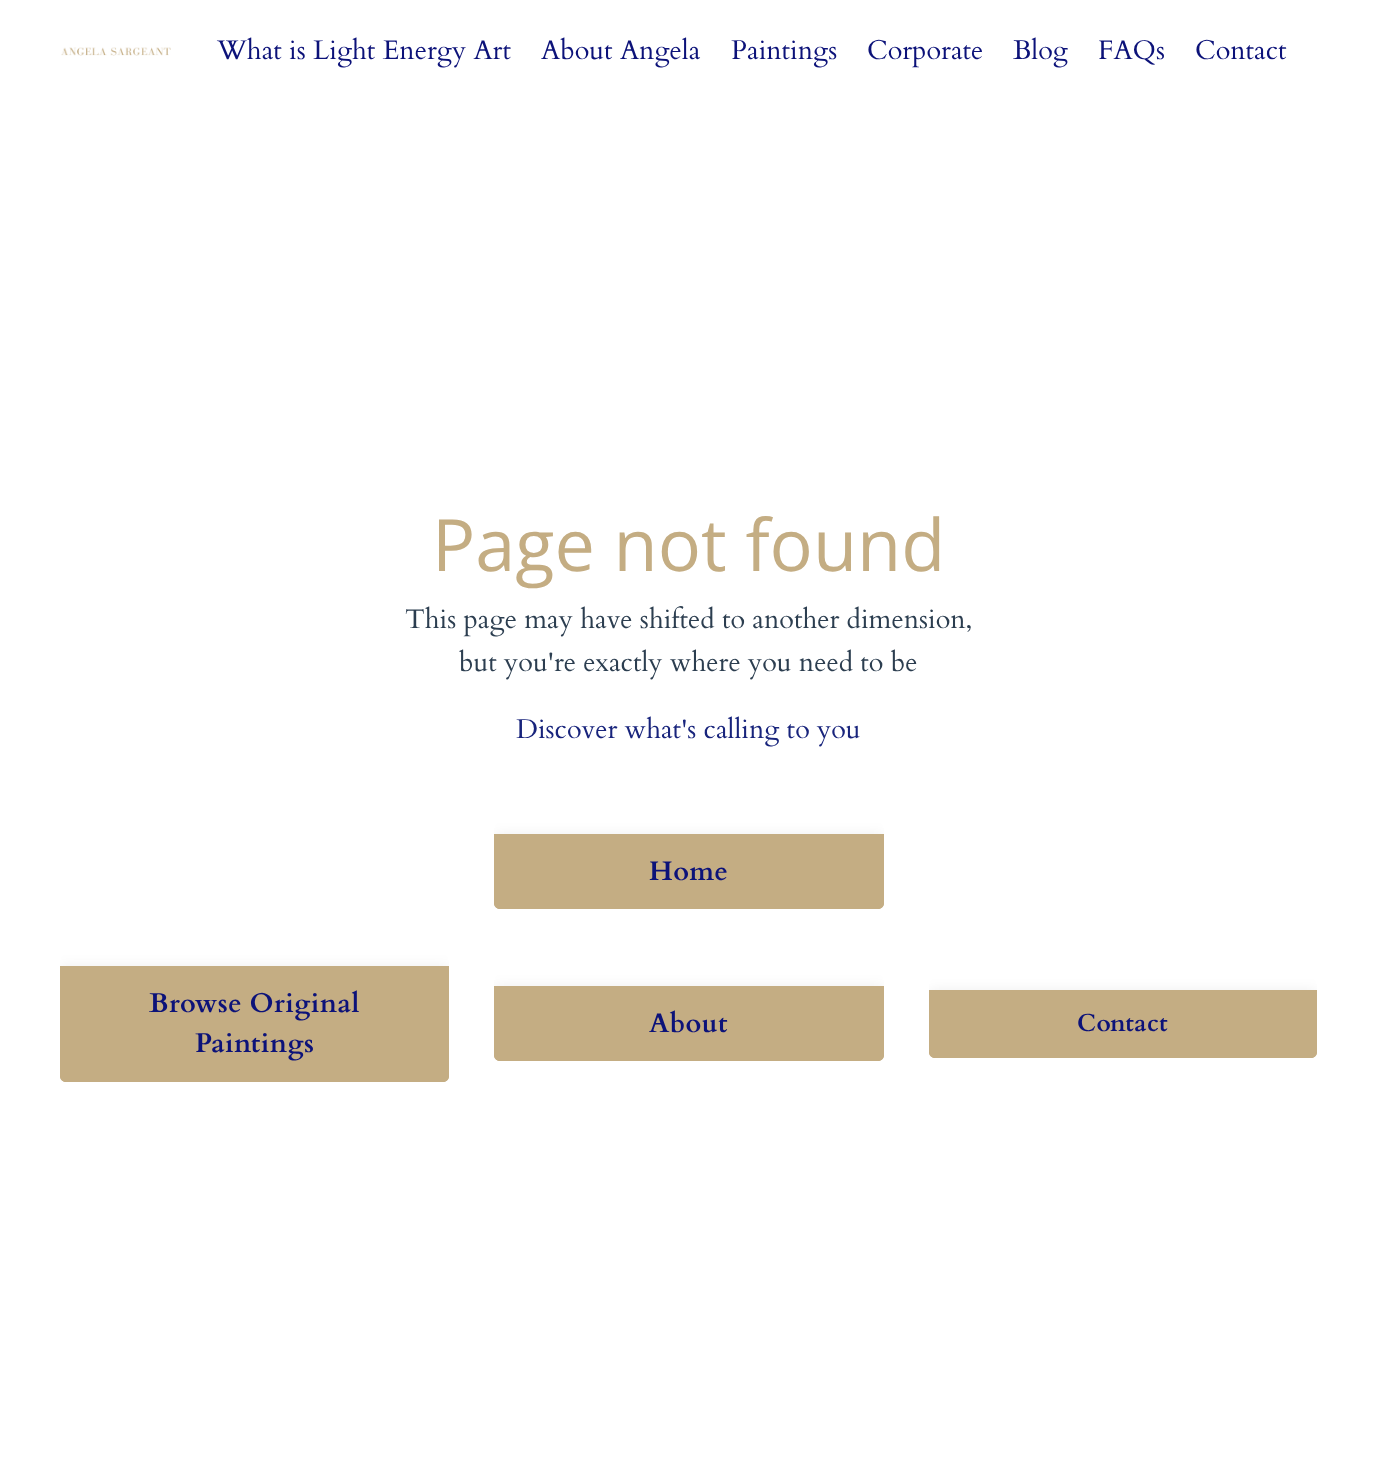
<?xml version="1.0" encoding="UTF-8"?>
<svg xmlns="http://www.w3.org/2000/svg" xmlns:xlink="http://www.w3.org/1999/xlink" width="1376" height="1478">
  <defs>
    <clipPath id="clip1"><rect x="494" y="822" width="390" height="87" rx="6" /></clipPath>
    <clipPath id="clip2"><rect x="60" y="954" width="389" height="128" rx="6" /></clipPath>
    <clipPath id="clip3"><rect x="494" y="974" width="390" height="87" rx="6" /></clipPath>
    <clipPath id="clip4"><rect x="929" y="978" width="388" height="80" rx="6" /></clipPath>
  </defs>
  <rect width="100%" height="100%" fill="#ffffff" />
  <image x="61" y="47" width="110" height="9" xlink:href="image1.png" />
  <g clip-path="url(#clip1)">
    <rect x="494" y="837" width="390" height="75" fill="#000000" fill-opacity="0.1" filter="blur(7.5px)" />
  </g>
  <path d="M 494 834 h 390 v 69 c 0 3.5 -2.5 6 -6 6 h -378 c -3.5 0 -6 -2.5 -6 -6 z" fill="#c4ad83" />
  <path d="M 494 834 v 69 c 0 3 3 6 6 6 h 378 c 3 0 6 -3 6 -6 v -69 z m 3 3 v 69 h 384 v -69 z" fill="#c4ad83" fill-rule="evenodd" />
  <g clip-path="url(#clip2)">
    <rect x="60" y="969" width="389" height="116" fill="#000000" fill-opacity="0.1" filter="blur(7.5px)" />
  </g>
  <path d="M 60 966 h 389 v 110 c 0 3.5 -2.5 6 -6 6 h -377 c -3.5 0 -6 -2.5 -6 -6 z" fill="#c4ad83" />
  <path d="M 60 966 v 110 c 0 3 3 6 6 6 h 377 c 3 0 6 -3 6 -6 v -110 z m 3 3 v 110 h 383 v -110 z" fill="#c4ad83" fill-rule="evenodd" />
  <g clip-path="url(#clip3)">
    <rect x="494" y="989" width="390" height="75" fill="#000000" fill-opacity="0.1" filter="blur(7.5px)" />
  </g>
  <path d="M 494 986 h 390 v 69 c 0 3.5 -2.5 6 -6 6 h -378 c -3.5 0 -6 -2.5 -6 -6 z" fill="#c4ad83" />
  <path d="M 494 986 v 69 c 0 3 3 6 6 6 h 378 c 3 0 6 -3 6 -6 v -69 z m 3 3 v 69 h 384 v -69 z" fill="#c4ad83" fill-rule="evenodd" />
  <g clip-path="url(#clip4)">
    <rect x="929" y="993" width="388" height="68" fill="#000000" fill-opacity="0.1" filter="blur(7.5px)" />
  </g>
  <path d="M 929 990 h 388 v 62 c 0 3.5 -2.5 6 -6 6 h -376 c -3.5 0 -6 -2.5 -6 -6 z" fill="#c4ad83" />
  <path d="M 929 990 v 62 c 0 3 3 6 6 6 h 376 c 3 0 6 -3 6 -6 v -62 z m 3 3 v 62 h 382 v -62 z" fill="#c4ad83" fill-rule="evenodd" />
  <text x="217" y="59" style="font-family: Cardo; font-size: 27px; fill: #0c1279">What is Light Energy Art</text>
  <text x="541" y="59" style="font-family: Cardo; font-size: 27px; fill: #0c1279">About Angela</text>
  <text x="731" y="59" style="font-family: Cardo; font-size: 27px; fill: #0c1279">Paintings</text>
  <text x="867" y="59" style="font-family: Cardo; font-size: 27px; fill: #0c1279">Corporate</text>
  <text x="1013" y="59" style="font-family: Cardo; font-size: 27px; fill: #0c1279">Blog</text>
  <text x="1098" y="59" style="font-family: Cardo; font-size: 27px; fill: #0c1279">FAQs</text>
  <text x="1195" y="59" style="font-family: Cardo; font-size: 27px; fill: #0c1279">Contact</text>
  <text x="432" y="571" style="font-family: Open Sans; font-size: 72px; fill: #c4ad83">Page not found</text>
  <text x="405" y="628" style="font-family: Cardo; font-size: 27px; fill: #2c3e50">This page may have shifted to another dimension,</text>
  <text x="459" y="671" style="font-family: Cardo; font-size: 27px; fill: #2c3e50">but you're exactly where you need to be</text>
  <text x="516" y="738" style="font-family: Cardo; font-size: 27px; fill: #18247c">Discover what's calling to you</text>
  <text x="649" y="880" style="font-family: Cardo; font-size: 27px; font-weight: bold; letter-spacing: 0.4px; fill: #0c1279">Home</text>
  <text x="149" y="1012" style="font-family: Cardo; font-size: 27px; font-weight: bold; letter-spacing: 0.4px; fill: #0c1279">Browse Original</text>
  <text x="195" y="1052" style="font-family: Cardo; font-size: 27px; font-weight: bold; letter-spacing: 0.4px; fill: #0c1279">Paintings</text>
  <text x="649" y="1032" style="font-family: Cardo; font-size: 27px; font-weight: bold; letter-spacing: 0.4px; fill: #0c1279">About</text>
  <text x="1077" y="1031" style="font-family: Cardo; font-size: 24.5px; font-weight: bold; letter-spacing: 0.4px; fill: #0c1279">Contact</text>
</svg>
